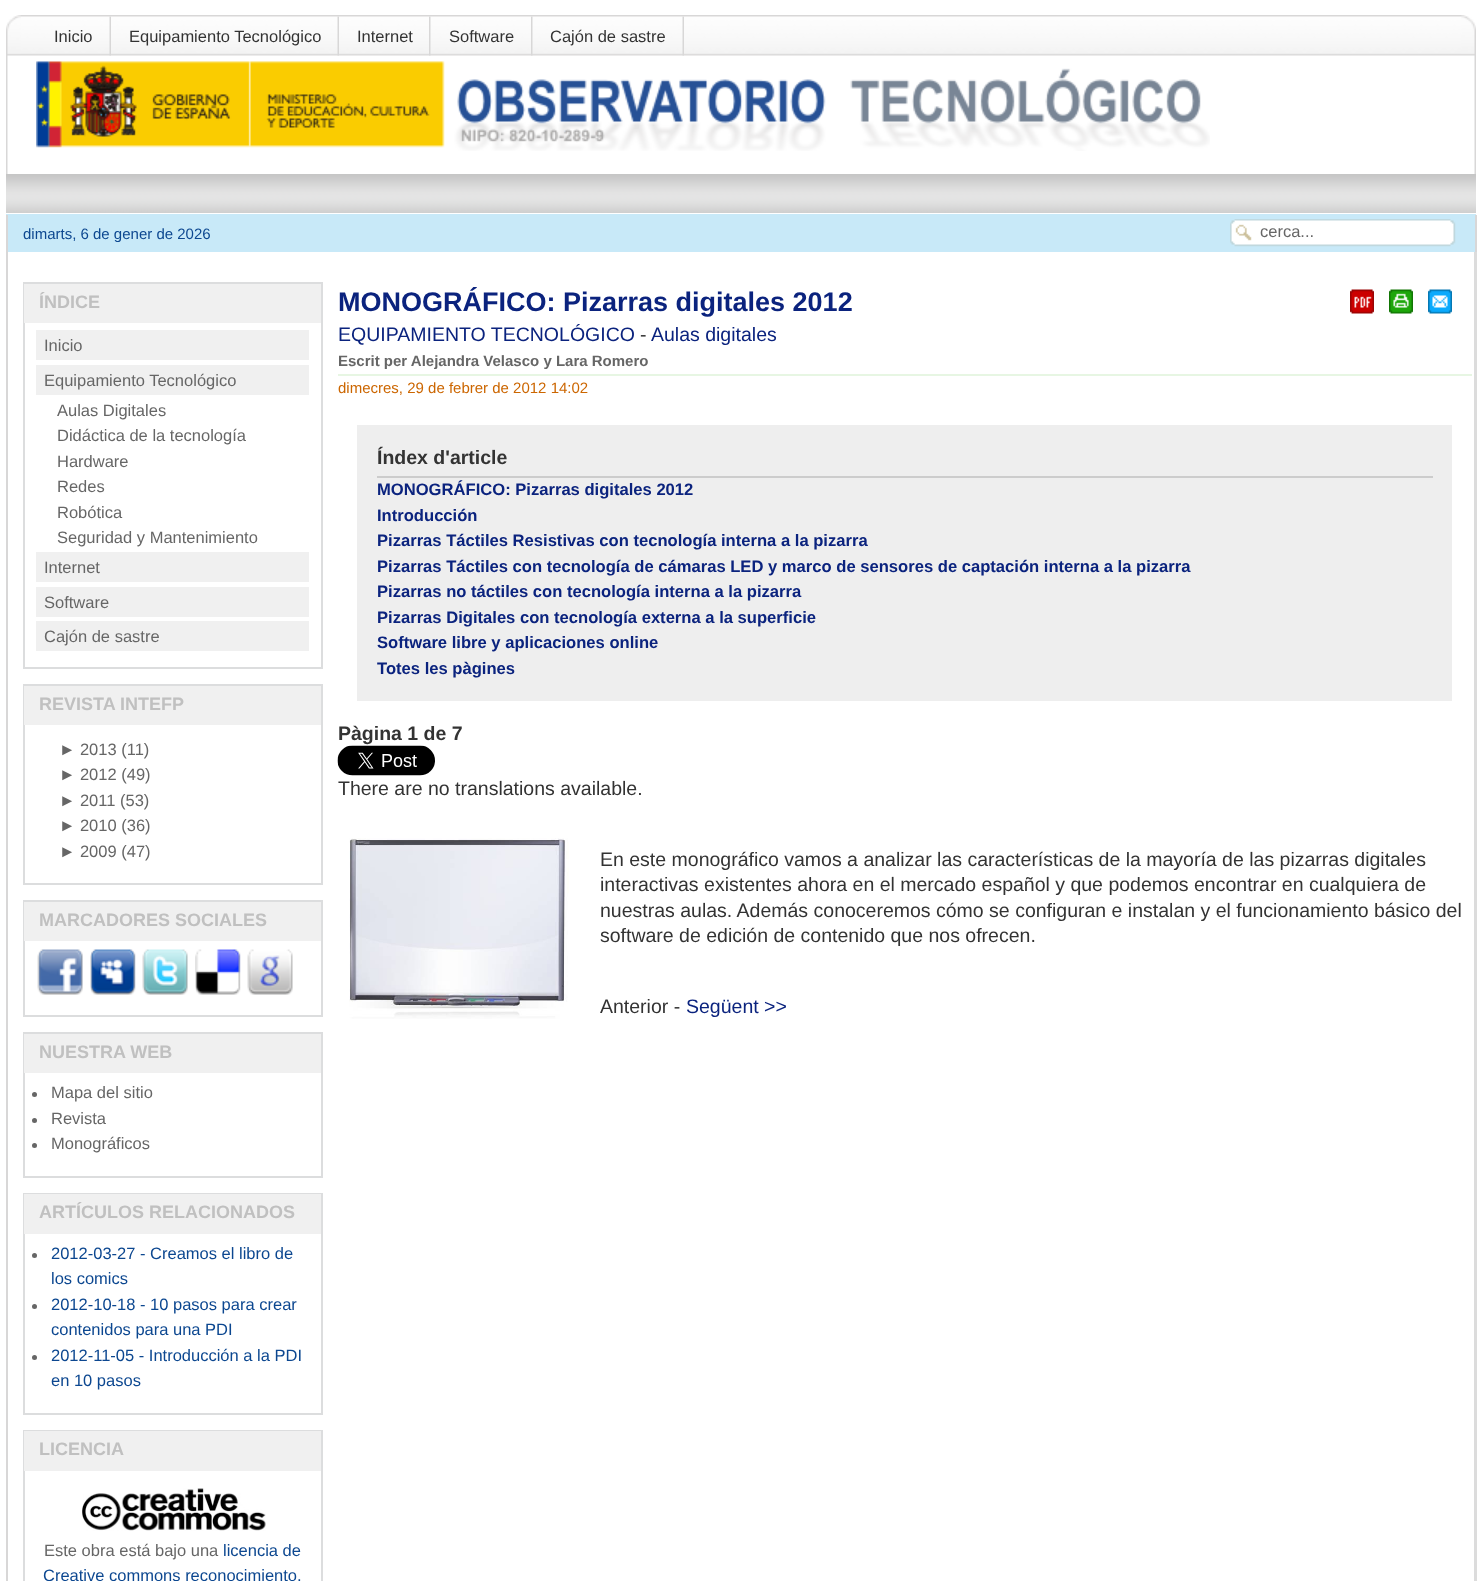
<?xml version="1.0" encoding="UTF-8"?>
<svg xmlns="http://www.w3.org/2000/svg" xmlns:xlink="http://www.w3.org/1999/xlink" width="1481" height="1581">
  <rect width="100%" height="100%" fill="#ffffff" />
  <image x="21" y="15" width="1440" height="41" xlink:href="image1.png" />
  <image x="6" y="15" width="15" height="159" xlink:href="image2.png" />
  <image x="109" y="16" width="2" height="40" xlink:href="image3.png" />
  <image x="337" y="16" width="2" height="40" xlink:href="image4.png" />
  <image x="429" y="16" width="2" height="40" xlink:href="image5.png" />
  <image x="531" y="16" width="2" height="40" xlink:href="image6.png" />
  <image x="682" y="16" width="2" height="40" xlink:href="image7.png" />
  <image x="36" y="61" width="1174" height="90" xlink:href="image8.png" />
  <image x="1461" y="15" width="15" height="159" xlink:href="image9.png" />
  <image x="6" y="174" width="1470" height="39" xlink:href="image10.png" />
  <rect x="6" y="214" width="1470" height="38" fill="#c8e9f8" />
  <rect x="1475" y="215" width="2" height="37" fill="#d8d7d7" />
  <rect x="6" y="215" width="2" height="1366" fill="#d8d7d7" />
  <image x="1230" y="219" width="226" height="28" xlink:href="image11.png" />
  <rect x="1474" y="252" width="3" height="1329" fill="#dcdcdc" />
  <rect x="24" y="283" width="298" height="385" fill="none" stroke="#dcddde" stroke-width="2" />
  <rect x="24" y="284" width="297" height="39" fill="#f0f0f0" />
  <rect x="36" y="330" width="273" height="30" fill="#f0f0f0" />
  <rect x="36" y="365" width="273" height="30" fill="#f0f0f0" />
  <rect x="36" y="552" width="273" height="30" fill="#f0f0f0" />
  <rect x="36" y="587" width="273" height="30" fill="#f0f0f0" />
  <rect x="36" y="621" width="273" height="30" fill="#f0f0f0" />
  <rect x="24" y="685" width="298" height="199" fill="none" stroke="#dcddde" stroke-width="2" />
  <rect x="24" y="686" width="297" height="39" fill="#f0f0f0" />
  <rect x="24" y="901" width="298" height="115" fill="none" stroke="#dcddde" stroke-width="2" />
  <rect x="24" y="902" width="297" height="39" fill="#f0f0f0" />
  <image x="37" y="949" width="46" height="46" xlink:href="image12.png" />
  <image x="90" y="949" width="46" height="46" xlink:href="image13.png" />
  <image x="142" y="949" width="46" height="46" xlink:href="image14.png" />
  <image x="195" y="949" width="46" height="46" xlink:href="image15.png" />
  <image x="247" y="949" width="46" height="46" xlink:href="image16.png" />
  <rect x="24" y="1033" width="298" height="144" fill="none" stroke="#dcddde" stroke-width="2" />
  <rect x="24" y="1034" width="297" height="39" fill="#f0f0f0" />
  <circle cx="34.5" cy="1094.5" r="2.5" fill="#666666" />
  <circle cx="34.5" cy="1120.5" r="2.5" fill="#666666" />
  <circle cx="34.5" cy="1145.5" r="2.5" fill="#666666" />
  <rect x="24" y="1194" width="298" height="220" fill="none" stroke="#dcddde" stroke-width="2" />
  <rect x="24" y="1194" width="297" height="40" fill="#f0f0f0" />
  <circle cx="34.5" cy="1255.5" r="2.5" fill="#666666" />
  <circle cx="34.5" cy="1306.5" r="2.5" fill="#666666" />
  <circle cx="34.5" cy="1357.5" r="2.5" fill="#666666" />
  <rect x="24" y="1431" width="298" height="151" fill="none" stroke="#dcddde" stroke-width="2" />
  <rect x="24" y="1431" width="297" height="40" fill="#f0f0f0" />
  <image x="82" y="1488" width="184" height="43" xlink:href="image17.png" />
  <image x="1350" y="289" width="24" height="25" xlink:href="image18.png" />
  <image x="1389" y="289" width="24" height="25" xlink:href="image19.png" />
  <image x="1428" y="289" width="24" height="25" xlink:href="image20.png" />
  <rect x="338" y="374" width="1134" height="2" fill="#e7f6e3" />
  <rect x="357" y="425" width="1095" height="276" fill="#eeeeee" />
  <rect x="377" y="476" width="1056" height="2" fill="#cccccc" />
  <image x="337" y="745" width="98" height="31" xlink:href="image21.png" />
  <image x="349" y="838" width="220" height="181" xlink:href="image22.png" />
  <text x="54" y="42" style="font-family: Liberation Sans; font-size: 16.5px; fill: #333333">Inicio</text>
  <text x="129" y="42" style="font-family: Liberation Sans; font-size: 16.5px; fill: #333333">Equipamiento Tecnológico</text>
  <text x="357" y="42" style="font-family: Liberation Sans; font-size: 16.5px; fill: #333333">Internet</text>
  <text x="449" y="42" style="font-family: Liberation Sans; font-size: 16.5px; fill: #333333">Software</text>
  <text x="550" y="42" style="font-family: Liberation Sans; font-size: 16.5px; fill: #333333">Cajón de sastre</text>
  <text x="23" y="239" style="font-family: Liberation Sans; font-size: 15px; fill: #0c4790">dimarts, 6 de gener de 2026</text>
  <text x="1260" y="237" style="font-family: Liberation Sans; font-size: 16.5px; fill: #666666">cerca...</text>
  <text x="39" y="308" style="font-family: Liberation Sans; font-size: 18px; font-weight: bold; fill: #c0c0c0">ÍNDICE</text>
  <text x="44" y="351" style="font-family: Liberation Sans; font-size: 16.5px; fill: #666666">Inicio</text>
  <text x="44" y="386" style="font-family: Liberation Sans; font-size: 16.5px; fill: #666666">Equipamiento Tecnológico</text>
  <text x="57" y="416" style="font-family: Liberation Sans; font-size: 16.5px; fill: #666666">Aulas Digitales</text>
  <text x="57" y="441" style="font-family: Liberation Sans; font-size: 16.5px; fill: #666666">Didáctica de la tecnología</text>
  <text x="57" y="467" style="font-family: Liberation Sans; font-size: 16.5px; fill: #666666">Hardware</text>
  <text x="57" y="492" style="font-family: Liberation Sans; font-size: 16.5px; fill: #666666">Redes</text>
  <text x="57" y="518" style="font-family: Liberation Sans; font-size: 16.5px; fill: #666666">Robótica</text>
  <text x="57" y="543" style="font-family: Liberation Sans; font-size: 16.5px; fill: #666666">Seguridad y Mantenimiento</text>
  <text x="44" y="573" style="font-family: Liberation Sans; font-size: 16.5px; fill: #666666">Internet</text>
  <text x="44" y="608" style="font-family: Liberation Sans; font-size: 16.5px; fill: #666666">Software</text>
  <text x="44" y="642" style="font-family: Liberation Sans; font-size: 16.5px; fill: #666666">Cajón de sastre</text>
  <text x="39" y="710" style="font-family: Liberation Sans; font-size: 18px; font-weight: bold; fill: #c0c0c0">REVISTA INTEFP</text>
  <text x="59" y="755" style="font-family: Liberation Sans; font-size: 16.5px; fill: #666666">► 2013 (11)</text>
  <text x="59" y="780" style="font-family: Liberation Sans; font-size: 16.5px; fill: #666666">► 2012 (49)</text>
  <text x="59" y="806" style="font-family: Liberation Sans; font-size: 16.5px; fill: #666666">► 2011 (53)</text>
  <text x="59" y="831" style="font-family: Liberation Sans; font-size: 16.5px; fill: #666666">► 2010 (36)</text>
  <text x="59" y="857" style="font-family: Liberation Sans; font-size: 16.5px; fill: #666666">► 2009 (47)</text>
  <text x="39" y="926" style="font-family: Liberation Sans; font-size: 18px; font-weight: bold; fill: #c0c0c0">MARCADORES SOCIALES</text>
  <text x="39" y="1058" style="font-family: Liberation Sans; font-size: 18px; font-weight: bold; fill: #c0c0c0">NUESTRA WEB</text>
  <text x="51" y="1098" style="font-family: Liberation Sans; font-size: 16.5px; fill: #666666">Mapa del sitio</text>
  <text x="51" y="1124" style="font-family: Liberation Sans; font-size: 16.5px; fill: #666666">Revista</text>
  <text x="51" y="1149" style="font-family: Liberation Sans; font-size: 16.5px; fill: #666666">Monográficos</text>
  <text x="39" y="1218" style="font-family: Liberation Sans; font-size: 18px; font-weight: bold; fill: #c0c0c0">ARTÍCULOS RELACIONADOS</text>
  <text x="51" y="1259" style="font-family: Liberation Sans; font-size: 16.5px; fill: #0c4790">2012-03-27 - Creamos el libro de</text>
  <text x="51" y="1284" style="font-family: Liberation Sans; font-size: 16.5px; fill: #0c4790">los comics</text>
  <text x="51" y="1310" style="font-family: Liberation Sans; font-size: 16.5px; fill: #0c4790">2012-10-18 - 10 pasos para crear</text>
  <text x="51" y="1335" style="font-family: Liberation Sans; font-size: 16.5px; fill: #0c4790">contenidos para una PDI</text>
  <text x="51" y="1361" style="font-family: Liberation Sans; font-size: 16.5px; fill: #0c4790">2012-11-05 - Introducción a la PDI</text>
  <text x="51" y="1386" style="font-family: Liberation Sans; font-size: 16.5px; fill: #0c4790">en 10 pasos</text>
  <text x="39" y="1455" style="font-family: Liberation Sans; font-size: 18px; font-weight: bold; fill: #c0c0c0">LICENCIA</text>
  <text x="44" y="1556" style="font-family: Liberation Sans; font-size: 16.5px; fill: #666666">Este obra está bajo una</text>
  <text x="223" y="1556" style="font-family: Liberation Sans; font-size: 16.5px; fill: #0c4790">licencia de</text>
  <text x="43" y="1581" style="font-family: Liberation Sans; font-size: 16.5px; fill: #0c4790">Creative commons reconocimiento,</text>
  <text x="338" y="311" style="font-family: Liberation Sans; font-size: 27px; font-weight: bold; fill: #0b237e">MONOGRÁFICO: Pizarras digitales 2012</text>
  <text x="338" y="341" style="font-family: Liberation Sans; font-size: 19.5px; fill: #0b237e">EQUIPAMIENTO TECNOLÓGICO</text>
  <text x="640" y="341" style="font-family: Liberation Sans; font-size: 19.5px; fill: #333333">-</text>
  <text x="651" y="341" style="font-family: Liberation Sans; font-size: 19.5px; fill: #0b237e">Aulas digitales</text>
  <text x="338" y="366" style="font-family: Liberation Sans; font-size: 15px; font-weight: bold; fill: #666666">Escrit per Alejandra Velasco y Lara Romero</text>
  <text x="338" y="393" style="font-family: Liberation Sans; font-size: 15px; fill: #cc6600">dimecres, 29 de febrer de 2012 14:02</text>
  <text x="377" y="464" style="font-family: Liberation Sans; font-size: 19.5px; font-weight: bold; fill: #333333">Índex d'article</text>
  <text x="377" y="495" style="font-family: Liberation Sans; font-size: 16.6px; font-weight: bold; fill: #0b237e">MONOGRÁFICO: Pizarras digitales 2012</text>
  <text x="377" y="521" style="font-family: Liberation Sans; font-size: 16.6px; font-weight: bold; fill: #0b237e">Introducción</text>
  <text x="377" y="546" style="font-family: Liberation Sans; font-size: 16.6px; font-weight: bold; fill: #0b237e">Pizarras Táctiles Resistivas con tecnología interna a la pizarra</text>
  <text x="377" y="572" style="font-family: Liberation Sans; font-size: 16.6px; font-weight: bold; fill: #0b237e">Pizarras Táctiles con tecnología de cámaras LED y marco de sensores de captación interna a la pizarra</text>
  <text x="377" y="597" style="font-family: Liberation Sans; font-size: 16.6px; font-weight: bold; fill: #0b237e">Pizarras no táctiles con tecnología interna a la pizarra</text>
  <text x="377" y="623" style="font-family: Liberation Sans; font-size: 16.6px; font-weight: bold; fill: #0b237e">Pizarras Digitales con tecnología externa a la superficie</text>
  <text x="377" y="648" style="font-family: Liberation Sans; font-size: 16.6px; font-weight: bold; fill: #0b237e">Software libre y aplicaciones online</text>
  <text x="377" y="674" style="font-family: Liberation Sans; font-size: 16.6px; font-weight: bold; fill: #0b237e">Totes les pàgines</text>
  <text x="338" y="740" style="font-family: Liberation Sans; font-size: 19.5px; font-weight: bold; fill: #333333">Pàgina 1 de 7</text>
  <text x="338" y="795" style="font-family: Liberation Sans; font-size: 19.5px; fill: #333333">There are no translations available.</text>
  <text x="600" y="866" style="font-family: Liberation Sans; font-size: 19.5px; fill: #333333">En este monográfico vamos a analizar las características de la mayoría de las pizarras digitales</text>
  <text x="600" y="891" style="font-family: Liberation Sans; font-size: 19.5px; fill: #333333">interactivas existentes ahora en el mercado español y que podemos encontrar en cualquiera de</text>
  <text x="600" y="917" style="font-family: Liberation Sans; font-size: 19.5px; fill: #333333">nuestras aulas. Además conoceremos cómo se configuran e instalan y el funcionamiento básico del</text>
  <text x="600" y="942" style="font-family: Liberation Sans; font-size: 19.5px; fill: #333333">software de edición de contenido que nos ofrecen.</text>
  <text x="600" y="1013" style="font-family: Liberation Sans; font-size: 19.5px; fill: #333333">Anterior -</text>
  <text x="686" y="1013" style="font-family: Liberation Sans; font-size: 19.5px; fill: #0b237e">Següent &gt;&gt;</text>
</svg>
